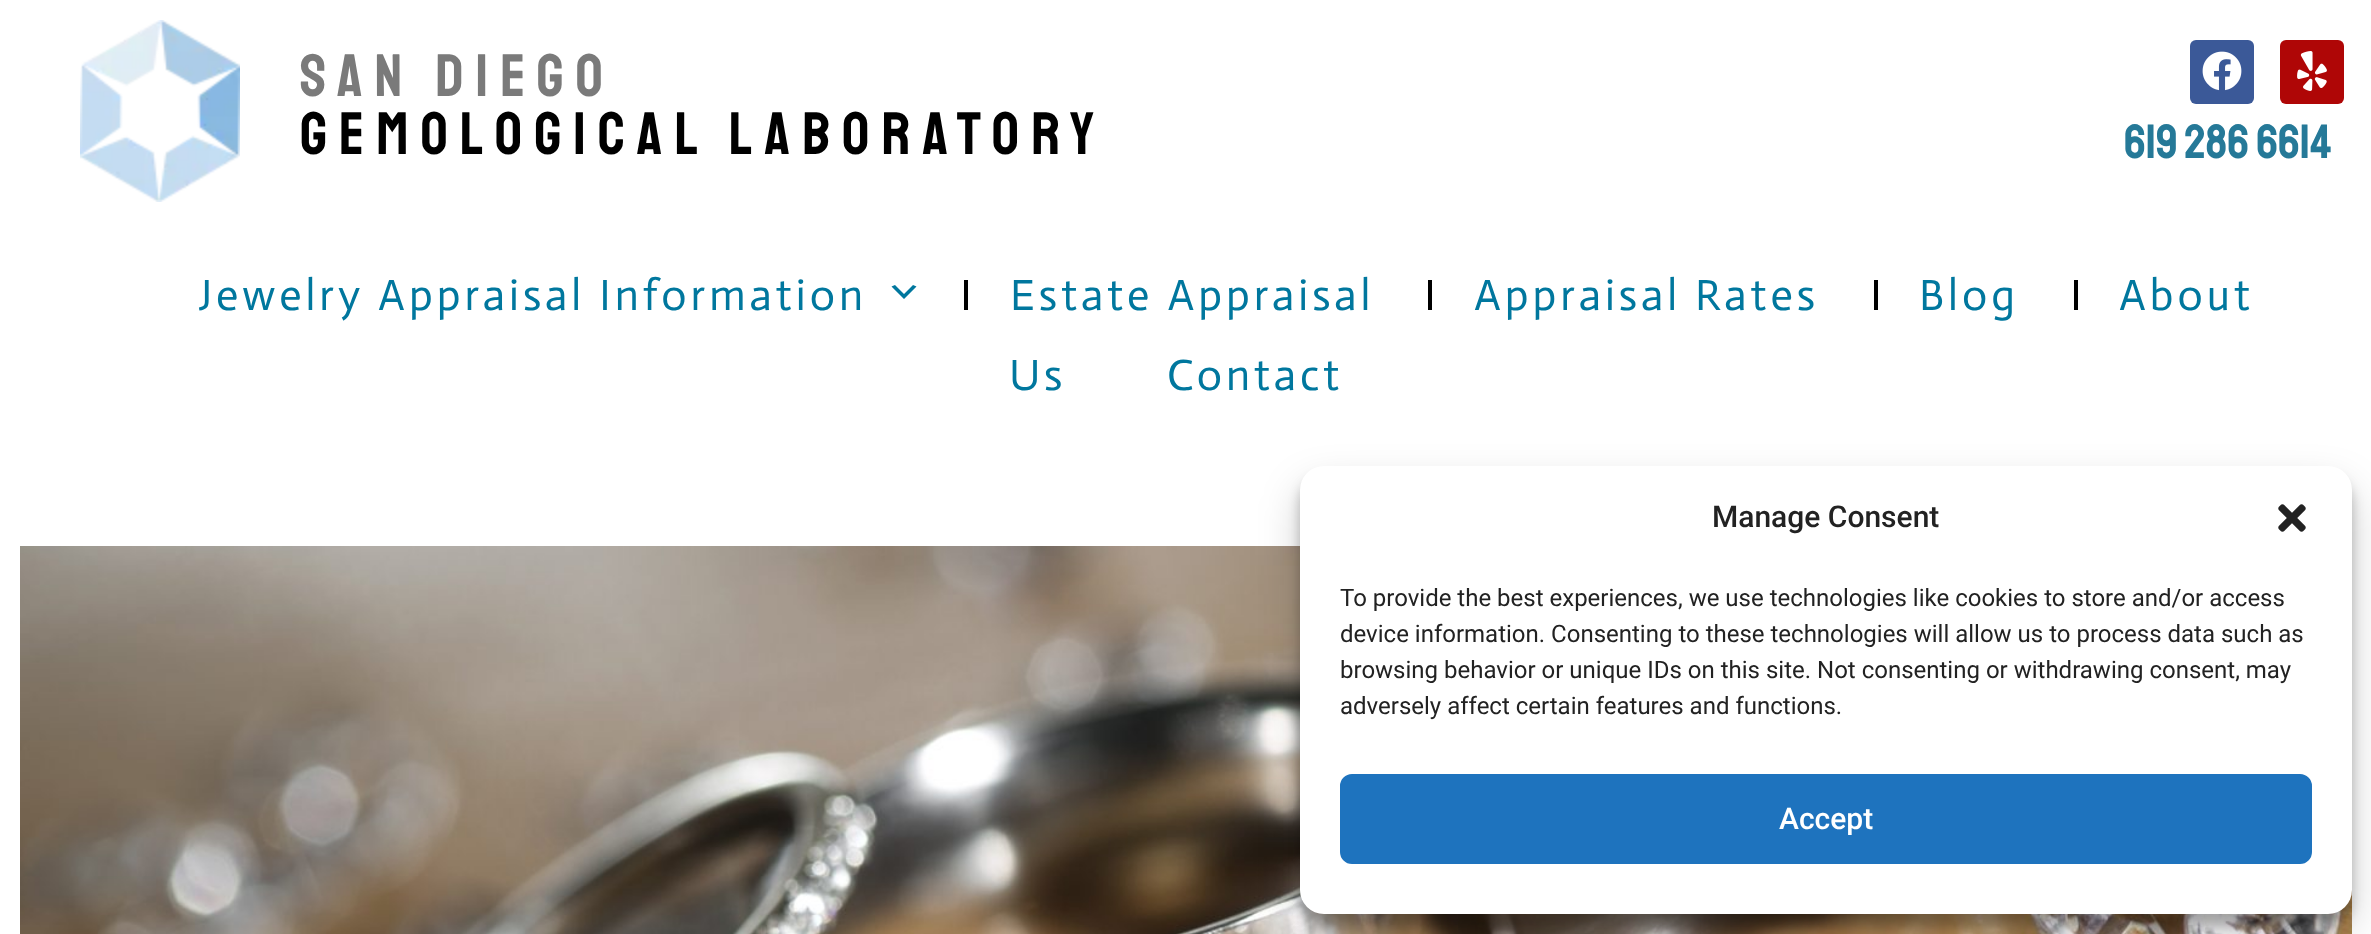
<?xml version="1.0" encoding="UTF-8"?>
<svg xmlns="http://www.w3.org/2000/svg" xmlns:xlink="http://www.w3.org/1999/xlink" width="2371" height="934">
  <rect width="100%" height="100%" fill="#ffffff" />
  <image x="80" y="20" width="160" height="182" xlink:href="image1.png" />
  <rect x="2190" y="40" width="64" height="64" rx="6" fill="#3b5998" />
  <image x="2202" y="51" width="40" height="40" xlink:href="image2.png" />
  <rect x="2280" y="40" width="64" height="64" rx="6" fill="#af0606" />
  <image x="2297" y="51" width="30" height="40" xlink:href="image3.png" />
  <path d="M 895 285 l 9 9 l 9 -9 l 3.5 1.5 l -12.5 12.5 l -12.5 -12.5 z" fill="#00779e" />
  <rect x="964" y="280" width="4" height="30" fill="#000000" />
  <rect x="1428" y="280" width="4" height="30" fill="#000000" />
  <rect x="1874" y="280" width="4" height="30" fill="#000000" />
  <rect x="2074" y="280" width="4" height="30" fill="#000000" />
  <image x="20" y="546" width="2332" height="388" xlink:href="image5.png" />
  <rect x="1300" y="478" width="1052" height="448" rx="24" fill="#000000" fill-opacity="0.23" filter="blur(6px)" />
  <rect x="1300" y="486" width="1052" height="448" rx="24" fill="#000000" fill-opacity="0.19" filter="blur(20px)" />
  <rect x="1300" y="466" width="1052" height="448" rx="24" fill="#ffffff" />
  <image x="2278" y="504" width="28" height="28" xlink:href="image4.png" />
  <rect x="1341" y="775" width="970" height="88" rx="11" fill="#1e73be" stroke="#1e73be" stroke-width="2" />
  <text x="300" y="96" style="font-family: Staatliches; font-size: 60px; letter-spacing: 12px; fill: #7a7a7a">SAN DIEGO</text>
  <text x="300" y="154" style="font-family: Staatliches; font-size: 60px; letter-spacing: 12px; fill: #000000">GEMOLOGICAL LABORATORY</text>
  <text x="2124" y="158" style="font-family: Staatliches; font-size: 48px; fill: #257998">619 286 6614</text>
  <text x="198" y="310" style="font-family: Actor; font-size: 44px; letter-spacing: 4px; fill: #00779e">Jewelry Appraisal Information</text>
  <text x="2119" y="310" style="font-family: Actor; font-size: 44px; letter-spacing: 4px; fill: #00779e">About</text>
  <text x="1009" y="390" style="font-family: Actor; font-size: 44px; letter-spacing: 4px; fill: #00779e">Us</text>
  <text x="1010" y="310" style="font-family: Actor; font-size: 44px; letter-spacing: 4px; fill: #00779e">Estate Appraisal</text>
  <text x="1474" y="310" style="font-family: Actor; font-size: 44px; letter-spacing: 4px; fill: #00779e">Appraisal Rates</text>
  <text x="1919" y="310" style="font-family: Actor; font-size: 44px; letter-spacing: 4px; fill: #00779e">Blog</text>
  <text x="1167" y="390" style="font-family: Actor; font-size: 44px; letter-spacing: 4px; fill: #00779e">Contact</text>
  <text x="1712" y="527" style="font-family: Roboto; font-size: 30px; font-weight: 500; fill: #222222">Manage Consent</text>
  <text x="1340" y="606" style="font-family: Roboto; font-size: 24px; fill: #222222">To provide the best experiences, we use technologies like cookies to store and/or access</text>
  <text x="1340" y="642" style="font-family: Roboto; font-size: 24px; fill: #222222">device information. Consenting to these technologies will allow us to process data such as</text>
  <text x="1340" y="678" style="font-family: Roboto; font-size: 24px; fill: #222222">browsing behavior or unique IDs on this site. Not consenting or withdrawing consent, may</text>
  <text x="1340" y="714" style="font-family: Roboto; font-size: 24px; fill: #222222">adversely affect certain features and functions.</text>
  <text x="1779" y="829" style="font-family: Roboto; font-size: 30px; font-weight: 500; fill: #ffffff">Accept</text>
</svg>
